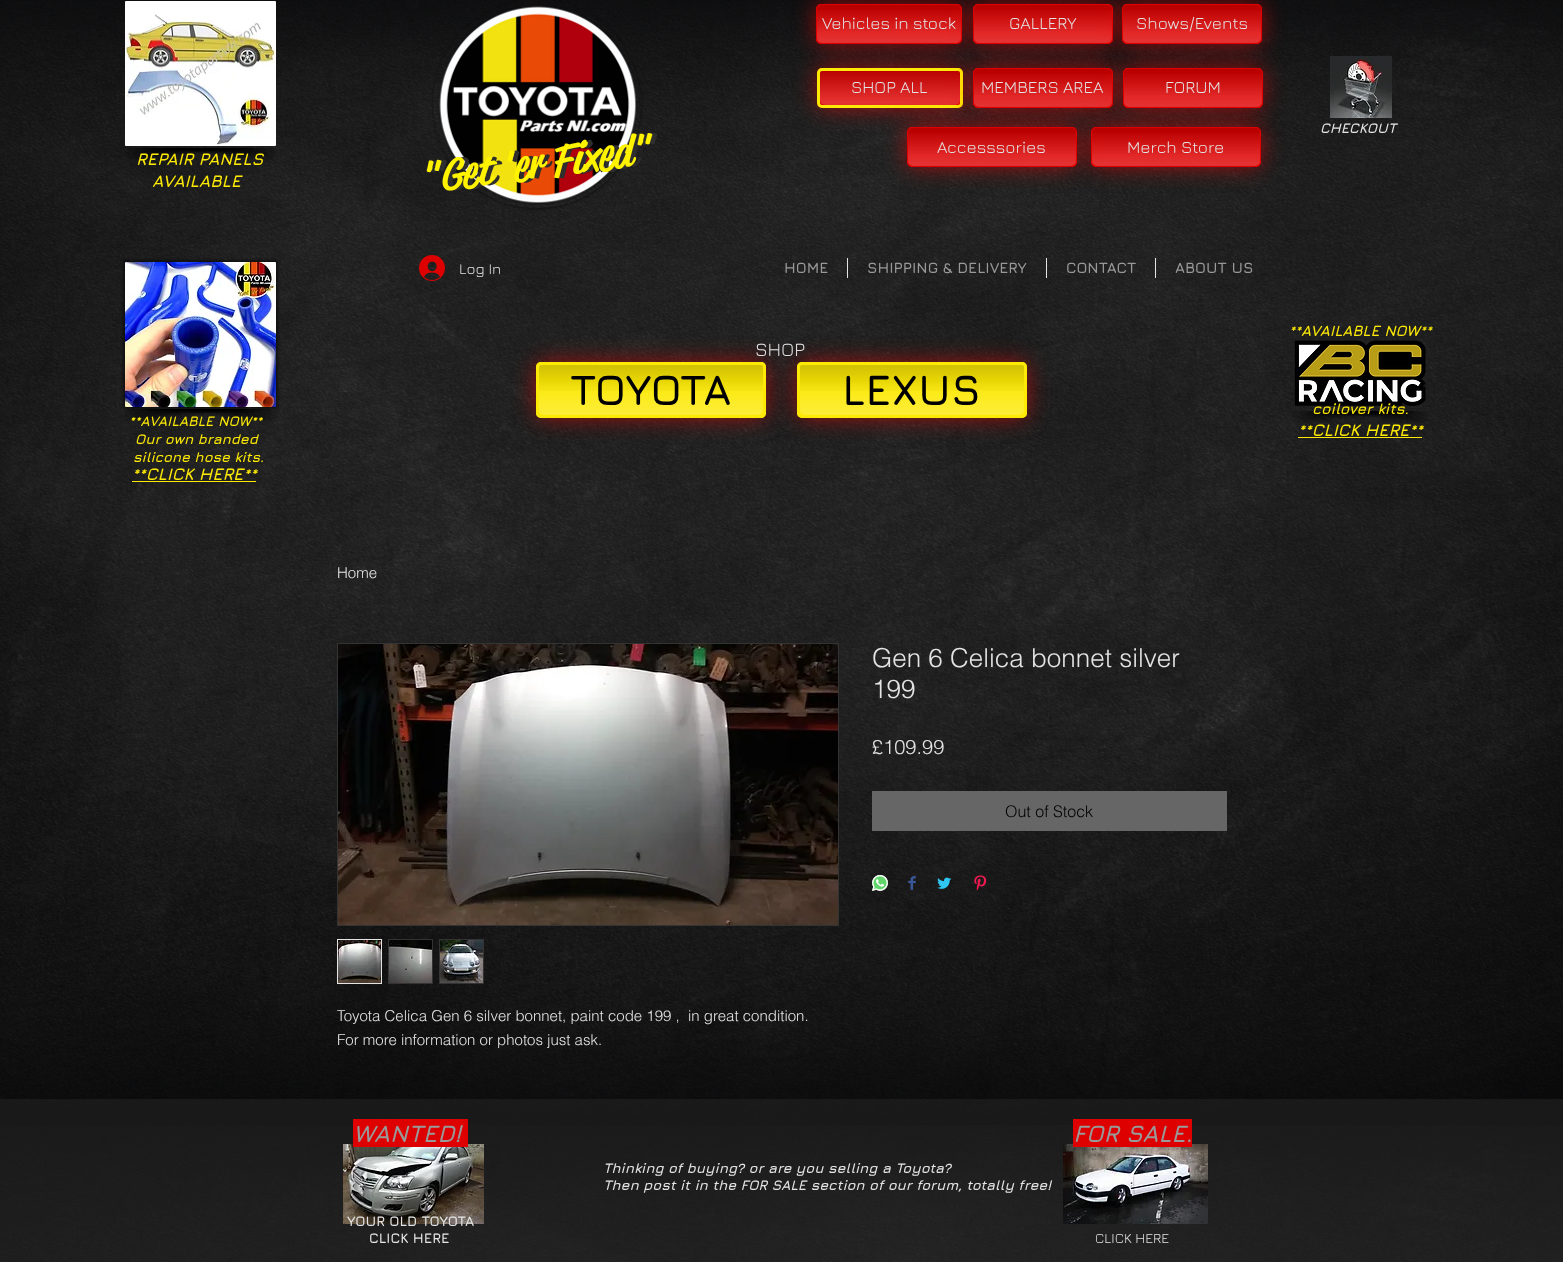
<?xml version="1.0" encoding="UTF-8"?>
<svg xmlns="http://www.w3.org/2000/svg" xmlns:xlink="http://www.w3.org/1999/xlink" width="1563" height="1262">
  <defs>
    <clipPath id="clip1"><path d="M 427 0 h 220 v 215 h -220 z m 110 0 c 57.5 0 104 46.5 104 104 c 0 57.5 -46.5 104 -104 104 c -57.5 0 -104 -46.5 -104 -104 c 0 -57.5 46.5 -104 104 -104 z" clip-rule="evenodd" /></clipPath>
  </defs>
  <rect width="100%" height="100%" fill="#000000" />
  <image x="0" y="0" width="1563" height="1262" xlink:href="image1.png" />
  <image x="125" y="1" width="151" height="145" xlink:href="image2.png" />
  <image x="127" y="148" width="116" height="11" xlink:href="image3.png" />
  <image x="192" y="148" width="83" height="12" xlink:href="image4.png" />
  <g clip-path="url(#clip1)">
    <rect x="433" y="1" width="208" height="208" rx="104" fill="#000000" fill-opacity="0.5" filter="blur(1.5px)" />
  </g>
  <image x="439" y="6" width="197" height="199" xlink:href="image5.png" />
  <rect x="817" y="5" width="144" height="38" rx="4" fill="#ff0000" fill-opacity="0.6" filter="blur(11.5px)" />
  <rect x="816" y="4" width="146" height="40" rx="5" fill="#de0000" />
  <image x="816" y="5" width="146" height="26" xlink:href="image6.png" />
  <rect x="816.5" y="4.5" width="145" height="39" rx="4.5" fill="none" stroke="#de0000" />
  <image x="817" y="10" width="144" height="33" xlink:href="image7.png" />
  <rect x="818" y="69" width="144" height="38" rx="4" fill="#ff0000" fill-opacity="0.6" filter="blur(11.5px)" />
  <rect x="817" y="68" width="146" height="40" rx="5" fill="#de0000" />
  <image x="817" y="71" width="146" height="26" xlink:href="image12.png" />
  <rect x="818.5" y="69.5" width="143" height="37" rx="3.5" fill="none" stroke="#fce905" stroke-width="3" />
  <image x="820" y="72" width="140" height="33" xlink:href="image13.png" />
  <rect x="974" y="5" width="138" height="38" rx="4" fill="#ff0000" fill-opacity="0.6" filter="blur(11.5px)" />
  <rect x="973" y="4" width="140" height="40" rx="5" fill="#de0000" />
  <image x="973" y="5" width="140" height="26" xlink:href="image8.png" />
  <rect x="973.5" y="4.5" width="139" height="39" rx="4.5" fill="none" stroke="#de0000" />
  <image x="974" y="10" width="138" height="33" xlink:href="image9.png" />
  <rect x="1123" y="5" width="138" height="38" rx="4" fill="#ff0000" fill-opacity="0.6" filter="blur(11.5px)" />
  <rect x="1122" y="4" width="140" height="40" rx="5" fill="#de0000" />
  <image x="1122" y="5" width="140" height="26" xlink:href="image10.png" />
  <rect x="1122.5" y="4.5" width="139" height="39" rx="4.5" fill="none" stroke="#de0000" />
  <image x="1123" y="10" width="138" height="33" xlink:href="image11.png" />
  <rect x="974" y="69" width="138" height="38" rx="4" fill="#ff0000" fill-opacity="0.6" filter="blur(11.5px)" />
  <rect x="973" y="68" width="140" height="40" rx="5" fill="#de0000" />
  <image x="973" y="69" width="140" height="26" xlink:href="image14.png" />
  <rect x="973.5" y="68.5" width="139" height="39" rx="4.5" fill="none" stroke="#de0000" />
  <image x="974" y="74" width="138" height="33" xlink:href="image15.png" />
  <rect x="1124" y="69" width="138" height="38" rx="4" fill="#ff0000" fill-opacity="0.6" filter="blur(11.5px)" />
  <rect x="1123" y="68" width="140" height="40" rx="5" fill="#de0000" />
  <image x="1123" y="69" width="140" height="26" xlink:href="image16.png" />
  <rect x="1123.5" y="68.5" width="139" height="39" rx="4.5" fill="none" stroke="#de0000" />
  <image x="1124" y="74" width="138" height="33" xlink:href="image17.png" />
  <image x="1330" y="56" width="62" height="62" xlink:href="image18.png" />
  <rect x="1092" y="128" width="168" height="38" rx="4" fill="#ff0000" fill-opacity="0.6" filter="blur(11.5px)" />
  <rect x="1091" y="127" width="170" height="40" rx="5" fill="#de0000" />
  <image x="1091" y="128" width="170" height="26" xlink:href="image21.png" />
  <rect x="1091.5" y="127.5" width="169" height="39" rx="4.5" fill="none" stroke="#de0000" />
  <image x="1092" y="133" width="168" height="33" xlink:href="image22.png" />
  <rect x="908" y="128" width="168" height="38" rx="4" fill="#ff0000" fill-opacity="0.6" filter="blur(11.5px)" />
  <rect x="907" y="127" width="170" height="40" rx="5" fill="#de0000" />
  <image x="907" y="128" width="170" height="26" xlink:href="image19.png" />
  <rect x="907.5" y="127.5" width="169" height="39" rx="4.5" fill="none" stroke="#de0000" />
  <image x="908" y="133" width="168" height="33" xlink:href="image20.png" />
  <rect x="123" y="260" width="155" height="149" rx="3" fill="#000000" fill-opacity="0.5" filter="blur(1.5px)" />
  <image x="125" y="262" width="151" height="145" xlink:href="image23.png" />
  <image x="125" y="409" width="118" height="12" xlink:href="image24.png" />
  <image x="191" y="409" width="87" height="12" xlink:href="image25.png" />
  <image x="419" y="255" width="26" height="26" xlink:href="image26.png" />
  <rect x="847" y="258" width="1" height="20" fill="#e4e4e4" />
  <rect x="1046" y="258" width="1" height="20" fill="#e4e4e4" />
  <rect x="1155" y="258" width="1" height="20" fill="#e4e4e4" />
  <image x="1294" y="340" width="132" height="66" xlink:href="image27.png" />
  <image x="1292" y="411" width="117" height="12" xlink:href="image28.png" />
  <image x="1348" y="411" width="79" height="12" xlink:href="image29.png" />
  <rect x="537" y="363" width="228" height="54" rx="4" fill="#ff0000" fill-opacity="0.6" filter="blur(11.5px)" />
  <rect x="536" y="362" width="230" height="56" rx="5" fill="#fce905" />
  <image x="536" y="365" width="230" height="26" xlink:href="image30.png" />
  <rect x="537.5" y="363.5" width="227" height="53" rx="3.5" fill="none" stroke="#fce905" stroke-width="3" />
  <image x="539" y="382" width="224" height="33" xlink:href="image31.png" />
  <rect x="798" y="363" width="228" height="54" rx="4" fill="#ff0000" fill-opacity="0.6" filter="blur(11.5px)" />
  <rect x="797" y="362" width="230" height="56" rx="5" fill="#fce905" />
  <image x="797" y="365" width="230" height="26" xlink:href="image32.png" />
  <rect x="798.5" y="363.5" width="227" height="53" rx="3.5" fill="none" stroke="#fce905" stroke-width="3" />
  <image x="800" y="382" width="224" height="33" xlink:href="image33.png" />
  <rect x="1298" y="437" width="124" height="1" fill="#fce905" />
  <rect x="132" y="481" width="124" height="1" fill="#fce905" />
  <rect x="872" y="791" width="355" height="40" fill="#666666" />
  <image x="872" y="875" width="16" height="16" xlink:href="image34.png" />
  <image x="908" y="876" width="8" height="14" xlink:href="image35.png" />
  <image x="937" y="877" width="15" height="12" xlink:href="image36.png" />
  <image x="974" y="875" width="13" height="16" xlink:href="image37.png" />
  <rect x="337.5" y="643.5" width="501" height="282" fill="none" stroke="#333333" />
  <image x="338" y="644" width="500" height="281" xlink:href="image38.png" />
  <rect x="337.5" y="939.5" width="44" height="44" fill="none" stroke="#e4e4e4" />
  <image x="338" y="940" width="43" height="43" xlink:href="image39.png" />
  <rect x="388" y="939" width="45" height="45" fill="#333333" />
  <image x="389" y="940" width="43" height="43" xlink:href="image40.png" />
  <rect x="439" y="939" width="45" height="45" fill="#333333" />
  <image x="440" y="940" width="43" height="43" xlink:href="image41.png" />
  <rect y="1099" width="1563" height="163" fill="#232323" fill-opacity="0.6" />
  <image x="343" y="1144" width="141" height="80" xlink:href="image42.png" />
  <rect x="353" y="1119" width="115" height="28" fill="#de0000" />
  <image x="1063" y="1144" width="145" height="80" xlink:href="image43.png" />
  <rect x="1073" y="1119" width="119" height="28" fill="#de0000" />
  <text x="822" y="29" style="font-family: Jura; font-size: 17px; fill: #e4e4e4">Vehicles in stock</text>
  <text x="1009" y="29" style="font-family: Jura; font-size: 17px; fill: #e4e4e4">GALLERY</text>
  <text x="1136" y="29" style="font-family: Jura; font-size: 17px; fill: #e4e4e4">Shows/Events</text>
  <text x="851" y="93" style="font-family: Jura; font-size: 17px; fill: #e4e4e4">SHOP ALL</text>
  <text x="981" y="93" style="font-family: Jura; font-size: 17px; fill: #e4e4e4">MEMBERS AREA</text>
  <text x="1165" y="93" style="font-family: Jura; font-size: 17px; fill: #e4e4e4">FORUM</text>
  <text x="1320" y="133" style="font-family: Jura; font-size: 14px; font-weight: bold; font-style: italic; fill: #e4e4e4">CHECKOUT</text>
  <text x="426" y="192" transform="rotate(-7.2 426 192)" style="font-family: 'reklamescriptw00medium'; font-size: 42px; font-weight: 500; font-style: italic; fill: #2f2e2e">"Get 'er Fixed"</text>
  <text x="421" y="192" transform="rotate(-7.2 421 192)" style="font-family: 'reklamescriptw00medium'; font-size: 42px; font-weight: 500; font-style: italic; fill: #fff300">"Get 'er Fixed"</text>
  <text x="937" y="153" style="font-family: Jura; font-size: 17px; fill: #e4e4e4">Accesssories</text>
  <text x="1127" y="153" style="font-family: Jura; font-size: 17px; fill: #e4e4e4">Merch Store</text>
  <text x="136" y="165" style="font-family: Jura; font-size: 17px; font-weight: bold; font-style: italic; fill: #fce905">REPAIR PANELS</text>
  <text x="152" y="187" style="font-family: Jura; font-size: 17px; font-weight: bold; font-style: italic; fill: #fce905">AVAILABLE</text>
  <text x="459" y="274" style="font-family: Jura; font-size: 15px; fill: #e4e4e4">Log In</text>
  <text x="784" y="273" style="font-family: Jura; font-size: 15px; font-weight: bold; fill: #999999">HOME</text>
  <text x="867" y="273" style="font-family: Jura; font-size: 15px; font-weight: bold; fill: #999999">SHIPPING &amp; DELIVERY</text>
  <text x="1066" y="273" style="font-family: Jura; font-size: 15px; font-weight: bold; fill: #999999">CONTACT</text>
  <text x="1175" y="273" style="font-family: Jura; font-size: 15px; font-weight: bold; fill: #999999">ABOUT US</text>
  <text x="1289" y="336" style="font-family: Jura; font-size: 15px; font-weight: bold; font-style: italic; fill: #fce905">**AVAILABLE NOW**</text>
  <text x="1312" y="414" style="font-family: Jura; font-size: 15px; font-weight: bold; font-style: italic; fill: #fce905">coilover kits.</text>
  <text x="755" y="356" style="font-family: Jura; font-size: 19px; fill: #e4e4e4">SHOP</text>
  <text x="570" y="405" style="font-family: Jura; font-size: 43px; font-weight: bold; fill: #000000">TOYOTA</text>
  <text x="842" y="405" style="font-family: Jura; font-size: 43px; font-weight: bold; fill: #000000">LEXUS</text>
  <text x="129" y="426" style="font-family: Jura; font-size: 14px; font-weight: bold; font-style: italic; fill: #fce905">**AVAILABLE NOW**</text>
  <text x="135" y="444" style="font-family: Jura; font-size: 14px; font-weight: bold; font-style: italic; fill: #fce905">Our own branded</text>
  <text x="133" y="462" style="font-family: Jura; font-size: 14px; font-weight: bold; font-style: italic; fill: #fce905">silicone hose kits.</text>
  <text x="1298" y="436" style="font-family: Jura; font-size: 17px; font-weight: bold; font-style: italic; fill: #fce905">**CLICK HERE**</text>
  <text x="132" y="480" style="font-family: Jura; font-size: 17px; font-weight: bold; font-style: italic; fill: #fce905">**CLICK HERE**</text>
  <text x="337" y="578" style="font-family: helvetica; font-size: 15px; font-weight: 300; fill: #e4e4e4">Home</text>
  <text x="872" y="667" style="font-family: helvetica; font-size: 26px; font-weight: 300; fill: #e4e4e4">Gen 6 Celica bonnet silver</text>
  <text x="872" y="698" style="font-family: helvetica; font-size: 26px; font-weight: 300; fill: #e4e4e4">199</text>
  <text x="872" y="754" style="font-family: helvetica; font-size: 20px; font-weight: 300; fill: #e4e4e4">£109.99</text>
  <text x="1005" y="817" style="font-family: helvetica; font-size: 16px; font-weight: 300; fill: #000000">Out of Stock</text>
  <text x="337" y="1021" style="font-family: helvetica; font-size: 15px; font-weight: 300; fill: #e4e4e4" xml:space="preserve">Toyota Celica Gen 6 silver bonnet, paint code 199 ,  in great condition.</text>
  <text x="337" y="1045" style="font-family: helvetica; font-size: 15px; font-weight: 300; fill: #e4e4e4">For more information or photos just ask.</text>
  <text x="353" y="1142" style="font-family: Jura; font-size: 24px; font-weight: bold; font-style: italic; fill: #999999">WANTED!</text>
  <text x="1073" y="1142" style="font-family: Jura; font-size: 24px; font-weight: bold; font-style: italic; fill: #999999">FOR SALE.</text>
  <text x="603" y="1173" style="font-family: Jura; font-size: 14px; font-weight: bold; font-style: italic; fill: #e4e4e4">Thinking of buying? or are you selling a Toyota?</text>
  <text x="603" y="1190" style="font-family: Jura; font-size: 14px; font-weight: bold; font-style: italic; fill: #e4e4e4">Then post it in the FOR SALE section of our forum, totally free!</text>
  <text x="347" y="1226" style="font-family: Jura; font-size: 14px; font-weight: bold; fill: #e4e4e4">YOUR OLD TOYOTA</text>
  <text x="369" y="1243" style="font-family: Jura; font-size: 14px; font-weight: bold; fill: #e4e4e4">CLICK HERE</text>
  <text x="1095" y="1243" style="font-family: Jura; font-size: 14px; fill: #e4e4e4">CLICK HERE</text>
</svg>
